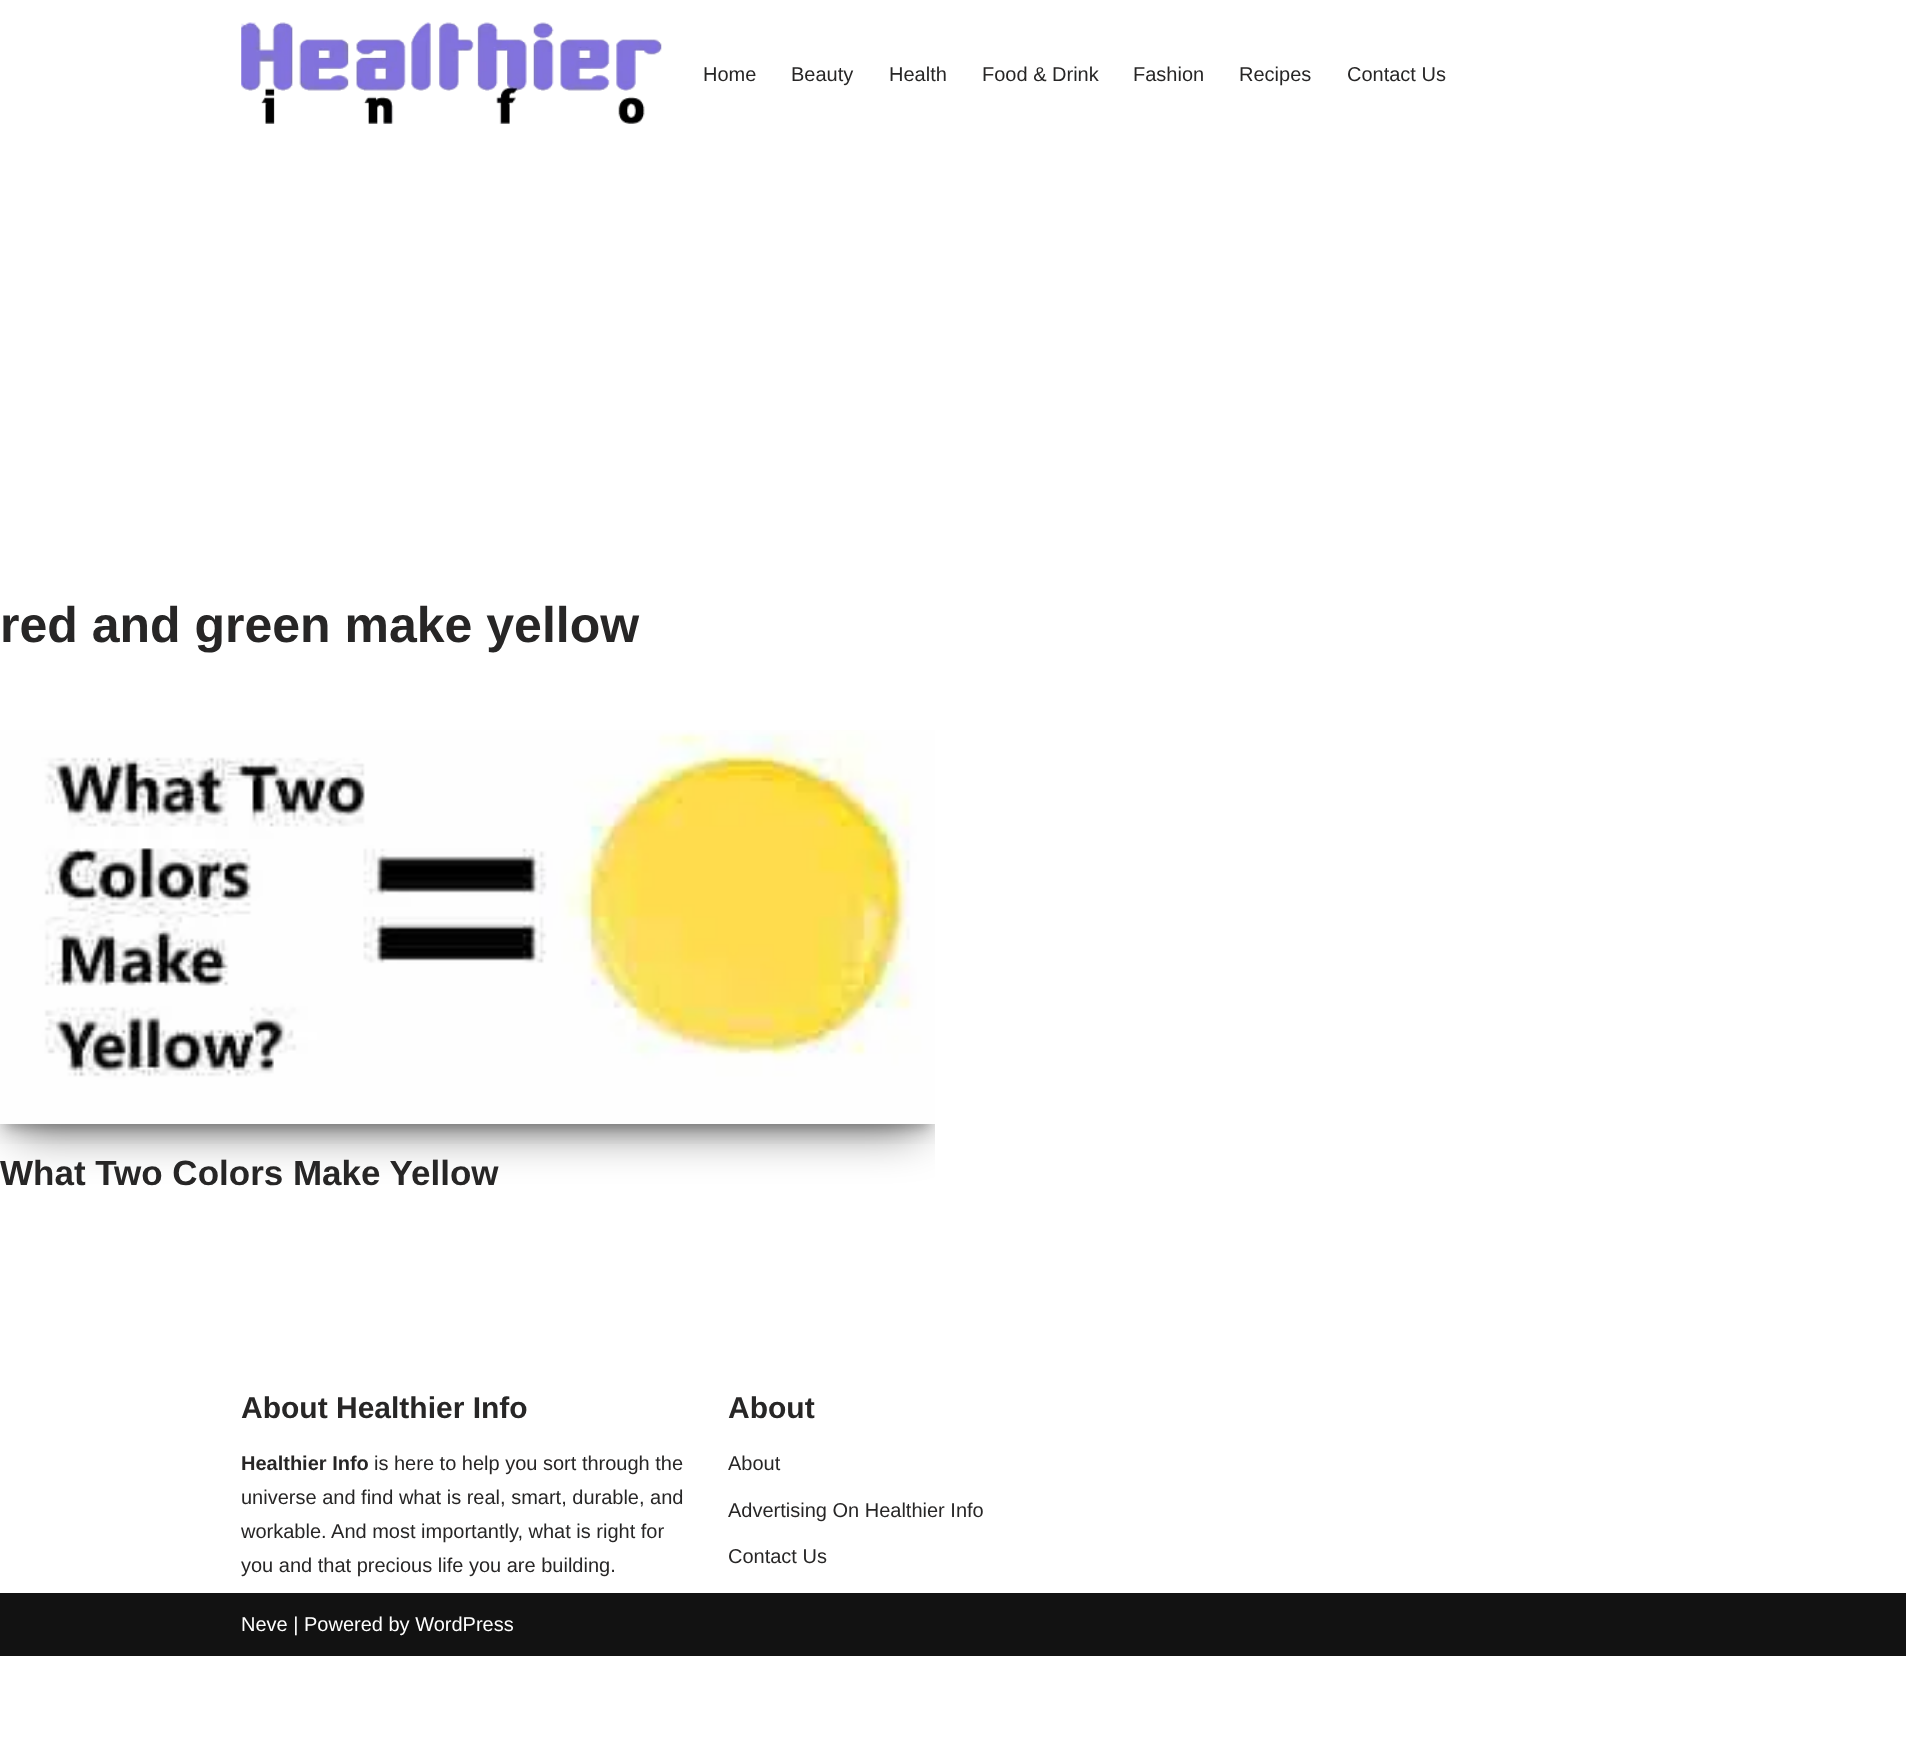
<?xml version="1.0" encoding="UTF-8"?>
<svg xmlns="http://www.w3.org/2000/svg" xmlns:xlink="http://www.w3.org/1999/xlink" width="1906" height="1763">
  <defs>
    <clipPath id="clip1"><rect x="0" y="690" width="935" height="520" /></clipPath>
    <clipPath id="clip2"><path d="M 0 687 h 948 v 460 h -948 z m 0 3 h 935 v 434 h -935 z" clip-rule="evenodd" /></clipPath>
    <clipPath id="clip3"><rect x="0" y="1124" width="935" height="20" /></clipPath>
    <clipPath id="clip4"><path d="M 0 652 h 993 v 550 h -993 z m 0 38 h 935 v 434 h -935 z" clip-rule="evenodd" /></clipPath>
  </defs>
  <rect width="100%" height="100%" fill="#ffffff" />
  <image x="241" y="22" width="421" height="102" xlink:href="image1.png" />
  <g clip-path="url(#clip1)">
    <g clip-path="url(#clip2)">
      <rect x="6" y="706" width="923" height="422" fill="#000000" fill-opacity="0.2" filter="blur(6px)" />
    </g>
  </g>
  <g clip-path="url(#clip1)">
    <g clip-path="url(#clip3)">
      <rect y="695" width="935" height="434" fill="#000000" fill-opacity="0.12" filter="blur(15.5px)" />
    </g>
  </g>
  <g clip-path="url(#clip1)">
    <g clip-path="url(#clip4)">
      <rect x="15" y="725" width="905" height="404" fill="#000000" fill-opacity="0.56" filter="blur(24px)" />
    </g>
  </g>
  <image x="0" y="730" width="935" height="394" xlink:href="image2.png" />
  <rect y="1593" width="1906" height="63" fill="#121212" />
  <text x="703" y="81" style="font-family: Liberation Sans; font-size: 20px; fill: #272626">Home</text>
  <text x="791" y="81" style="font-family: Liberation Sans; font-size: 20px; fill: #272626">Beauty</text>
  <text x="889" y="81" style="font-family: Liberation Sans; font-size: 20px; fill: #272626">Health</text>
  <text x="982" y="81" style="font-family: Liberation Sans; font-size: 20px; fill: #272626">Food &amp; Drink</text>
  <text x="1133" y="81" style="font-family: Liberation Sans; font-size: 20px; fill: #272626">Fashion</text>
  <text x="1239" y="81" style="font-family: Liberation Sans; font-size: 20px; fill: #272626">Recipes</text>
  <text x="1347" y="81" style="font-family: Liberation Sans; font-size: 20px; fill: #272626">Contact Us</text>
  <text x="0" y="642" style="font-family: Liberation Sans; font-size: 50px; font-weight: bold; fill: #272626">red and green make yellow</text>
  <text x="0" y="1185" style="font-family: Liberation Sans; font-size: 35px; font-weight: bold; fill: #272626">What Two Colors Make Yellow</text>
  <text x="241" y="1418" style="font-family: Liberation Sans; font-size: 30px; font-weight: bold; fill: #272626">About Healthier Info</text>
  <text x="241" y="1470" style="font-family: Liberation Sans; font-size: 20px; font-weight: bold; fill: #272626">Healthier Info</text>
  <text x="374" y="1470" style="font-family: Liberation Sans; font-size: 20px; fill: #272626">is here to help you sort through the</text>
  <text x="241" y="1504" style="font-family: Liberation Sans; font-size: 20px; fill: #272626">universe and find what is real, smart, durable, and</text>
  <text x="241" y="1538" style="font-family: Liberation Sans; font-size: 20px; fill: #272626">workable. And most importantly, what is right for</text>
  <text x="241" y="1572" style="font-family: Liberation Sans; font-size: 20px; fill: #272626">you and that precious life you are building.</text>
  <text x="728" y="1418" style="font-family: Liberation Sans; font-size: 30px; font-weight: bold; fill: #272626">About</text>
  <text x="728" y="1470" style="font-family: Liberation Sans; font-size: 20px; fill: #272626">About</text>
  <text x="728" y="1517" style="font-family: Liberation Sans; font-size: 20px; fill: #272626">Advertising On Healthier Info</text>
  <text x="728" y="1563" style="font-family: Liberation Sans; font-size: 20px; fill: #272626">Contact Us</text>
  <text x="241" y="1631" style="font-family: Liberation Sans; font-size: 20px; fill: #ffffff">Neve | Powered by WordPress</text>
</svg>
